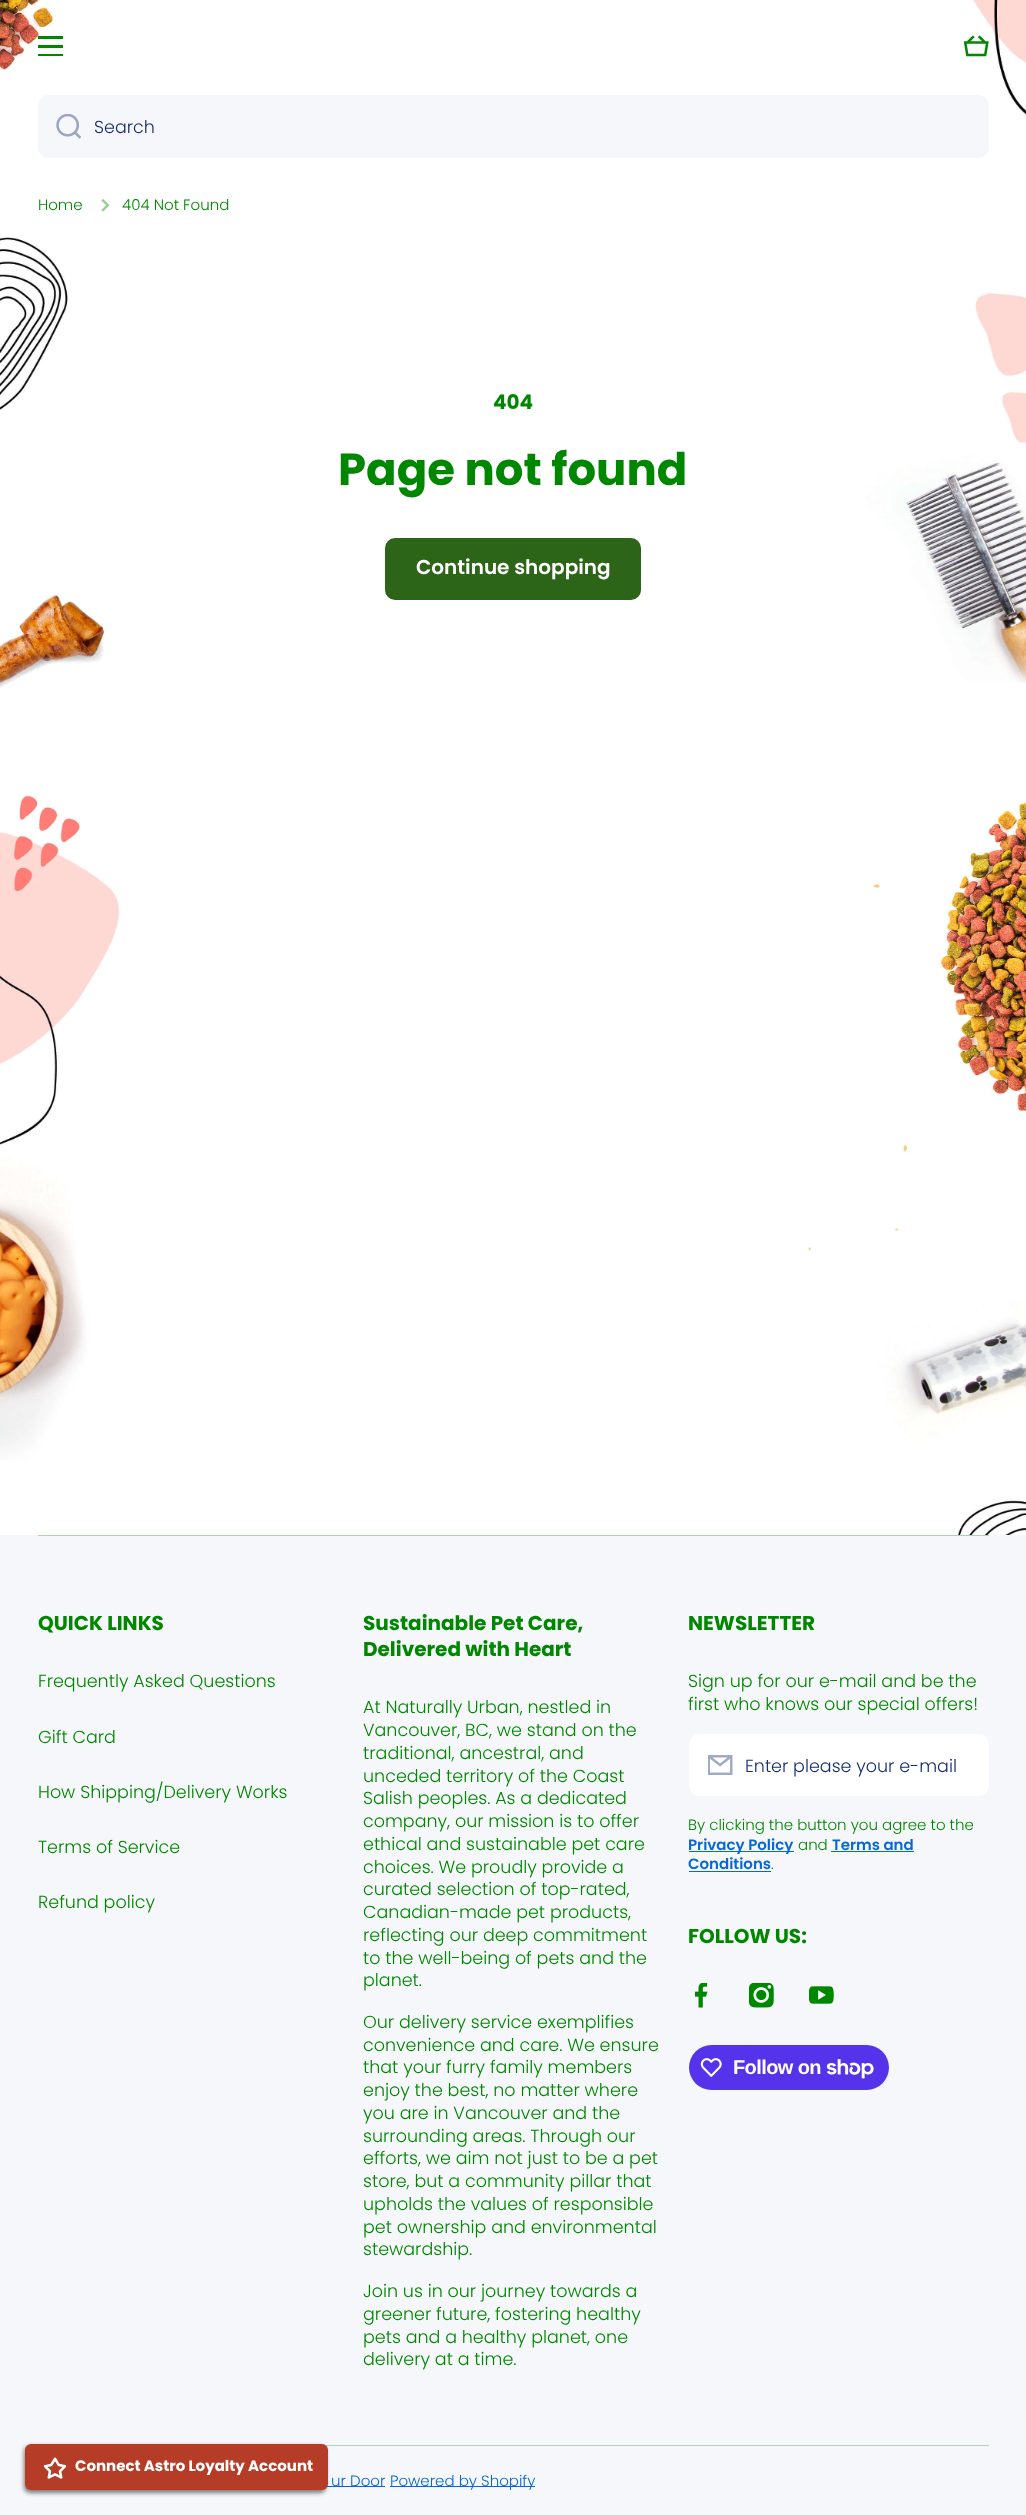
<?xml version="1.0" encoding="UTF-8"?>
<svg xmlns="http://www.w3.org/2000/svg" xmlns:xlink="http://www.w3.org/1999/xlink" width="1026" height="2515">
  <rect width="100%" height="100%" fill="#ffffff" />
  <image x="0" y="0" width="1026" height="1535" xlink:href="image1.png" />
  <rect x="38" y="36" width="25" height="3" fill="#008700" />
  <rect x="38" y="45" width="25" height="3" fill="#008700" />
  <rect x="38" y="54" width="25" height="2" fill="#008700" />
  <image x="964" y="35" width="25" height="22" xlink:href="image2.png" />
  <rect x="38" y="95" width="951" height="63" rx="10" fill="#f6f7fa" />
  <image x="56" y="114" width="25" height="25" xlink:href="image3.png" />
  <image x="101" y="199" width="9" height="13" xlink:href="image4.png" />
  <rect x="385" y="538" width="256" height="62" rx="10" fill="#2c6418" />
  <rect y="1535" width="1026" height="980" fill="#f6f7fa" />
  <rect x="38" y="1535" width="951" height="1" fill="#acd5af" />
  <rect x="689" y="1734" width="300" height="62" rx="10" fill="#ffffff" />
  <image x="708" y="1755" width="25" height="20" xlink:href="image5.png" />
  <rect x="689" y="1851" width="105" height="1" fill="#0568d6" />
  <rect x="831" y="1851" width="83" height="1" fill="#0568d6" />
  <rect x="689" y="1871" width="82" height="1" fill="#0568d6" />
  <image x="695" y="1983" width="13" height="25" xlink:href="image6.png" />
  <image x="749" y="1983" width="25" height="25" xlink:href="image7.png" />
  <image x="809" y="1986" width="25" height="18" xlink:href="image8.png" />
  <rect x="689" y="2045" width="200" height="45" rx="22.5" fill="#5433eb" />
  <image x="700" y="2058" width="22" height="19" xlink:href="image9.png" />
  <image x="826" y="2059" width="48" height="20" xlink:href="image10.png" />
  <rect x="325" y="2445" width="664" height="1" fill="#acd5af" />
  <rect x="327" y="2486" width="58" height="1" fill="#0568d6" />
  <rect x="390" y="2486" width="145" height="1" fill="#0568d6" />
  <rect x="24" y="2446" width="302" height="47" rx="6" fill="#000000" fill-opacity="0.5" filter="blur(2px)" />
  <rect x="25" y="2444" width="303" height="46" rx="6" fill="#b53c27" />
  <image x="43" y="2457" width="24" height="22" xlink:href="image11.png" />
  <text x="94" y="133" style="font-family: Poppins; font-size: 17.5px; font-weight: 300; fill: #142c73">Search</text>
  <text x="38" y="210" style="font-family: Poppins; font-size: 15px; font-weight: 300; fill: #008700">Home</text>
  <text x="122" y="210" style="font-family: Poppins; font-size: 15px; font-weight: 300; fill: #008700">404 Not Found</text>
  <text x="493" y="409" style="font-family: Poppins; font-size: 20px; font-weight: bold; fill: #008700">404</text>
  <text x="338" y="485" style="font-family: Poppins; font-size: 45px; font-weight: bold; fill: #008700">Page not found</text>
  <text x="416" y="574" style="font-family: Poppins; font-size: 20px; font-weight: 600; fill: #ffffff">Continue shopping</text>
  <text x="38" y="1630" style="font-family: Poppins; font-size: 20px; font-weight: bold; fill: #008700">QUICK LINKS</text>
  <text x="38" y="1687" style="font-family: Poppins; font-size: 17.5px; font-weight: 300; fill: #008700">Frequently Asked Questions</text>
  <text x="38" y="1743" style="font-family: Poppins; font-size: 17.5px; font-weight: 300; fill: #008700">Gift Card</text>
  <text x="38" y="1798" style="font-family: Poppins; font-size: 17.5px; font-weight: 300; fill: #008700">How Shipping/Delivery Works</text>
  <text x="38" y="1853" style="font-family: Poppins; font-size: 17.5px; font-weight: 300; fill: #008700">Terms of Service</text>
  <text x="38" y="1908" style="font-family: Poppins; font-size: 17.5px; font-weight: 300; fill: #008700">Refund policy</text>
  <text x="363" y="1630" style="font-family: Poppins; font-size: 20px; font-weight: bold; fill: #008700">Sustainable Pet Care,</text>
  <text x="363" y="1656" style="font-family: Poppins; font-size: 20px; font-weight: bold; fill: #008700">Delivered with Heart</text>
  <text x="363" y="1713" style="font-family: Poppins; font-size: 17.5px; font-weight: 300; fill: #008700">At Naturally Urban, nestled in</text>
  <text x="363" y="1736" style="font-family: Poppins; font-size: 17.5px; font-weight: 300; fill: #008700">Vancouver, BC, we stand on the</text>
  <text x="363" y="1759" style="font-family: Poppins; font-size: 17.5px; font-weight: 300; fill: #008700">traditional, ancestral, and</text>
  <text x="363" y="1782" style="font-family: Poppins; font-size: 17.5px; font-weight: 300; fill: #008700">unceded territory of the Coast</text>
  <text x="363" y="1804" style="font-family: Poppins; font-size: 17.5px; font-weight: 300; fill: #008700">Salish peoples. As a dedicated</text>
  <text x="363" y="1827" style="font-family: Poppins; font-size: 17.5px; font-weight: 300; fill: #008700">company, our mission is to offer</text>
  <text x="363" y="1850" style="font-family: Poppins; font-size: 17.5px; font-weight: 300; fill: #008700">ethical and sustainable pet care</text>
  <text x="363" y="1873" style="font-family: Poppins; font-size: 17.5px; font-weight: 300; fill: #008700">choices. We proudly provide a</text>
  <text x="363" y="1895" style="font-family: Poppins; font-size: 17.5px; font-weight: 300; fill: #008700">curated selection of top-rated,</text>
  <text x="363" y="1918" style="font-family: Poppins; font-size: 17.5px; font-weight: 300; fill: #008700">Canadian-made pet products,</text>
  <text x="363" y="1941" style="font-family: Poppins; font-size: 17.5px; font-weight: 300; fill: #008700">reflecting our deep commitment</text>
  <text x="363" y="1964" style="font-family: Poppins; font-size: 17.5px; font-weight: 300; fill: #008700">to the well-being of pets and the</text>
  <text x="363" y="1986" style="font-family: Poppins; font-size: 17.5px; font-weight: 300; fill: #008700">planet.</text>
  <text x="363" y="2028" style="font-family: Poppins; font-size: 17.5px; font-weight: 300; fill: #008700">Our delivery service exemplifies</text>
  <text x="363" y="2051" style="font-family: Poppins; font-size: 17.5px; font-weight: 300; fill: #008700">convenience and care. We ensure</text>
  <text x="363" y="2073" style="font-family: Poppins; font-size: 17.5px; font-weight: 300; fill: #008700">that your furry family members</text>
  <text x="363" y="2096" style="font-family: Poppins; font-size: 17.5px; font-weight: 300; fill: #008700">enjoy the best, no matter where</text>
  <text x="363" y="2119" style="font-family: Poppins; font-size: 17.5px; font-weight: 300; fill: #008700">you are in Vancouver and the</text>
  <text x="363" y="2142" style="font-family: Poppins; font-size: 17.5px; font-weight: 300; fill: #008700">surrounding areas. Through our</text>
  <text x="363" y="2164" style="font-family: Poppins; font-size: 17.5px; font-weight: 300; fill: #008700">efforts, we aim not just to be a pet</text>
  <text x="363" y="2187" style="font-family: Poppins; font-size: 17.5px; font-weight: 300; fill: #008700">store, but a community pillar that</text>
  <text x="363" y="2210" style="font-family: Poppins; font-size: 17.5px; font-weight: 300; fill: #008700">upholds the values of responsible</text>
  <text x="363" y="2233" style="font-family: Poppins; font-size: 17.5px; font-weight: 300; fill: #008700">pet ownership and environmental</text>
  <text x="363" y="2255" style="font-family: Poppins; font-size: 17.5px; font-weight: 300; fill: #008700">stewardship.</text>
  <text x="363" y="2297" style="font-family: Poppins; font-size: 17.5px; font-weight: 300; fill: #008700">Join us in our journey towards a</text>
  <text x="363" y="2320" style="font-family: Poppins; font-size: 17.5px; font-weight: 300; fill: #008700">greener future, fostering healthy</text>
  <text x="363" y="2343" style="font-family: Poppins; font-size: 17.5px; font-weight: 300; fill: #008700">pets and a healthy planet, one</text>
  <text x="363" y="2365" style="font-family: Poppins; font-size: 17.5px; font-weight: 300; fill: #008700">delivery at a time.</text>
  <text x="688" y="1630" style="font-family: Poppins; font-size: 20px; font-weight: bold; fill: #008700">NEWSLETTER</text>
  <text x="688" y="1687" style="font-family: Poppins; font-size: 17.5px; font-weight: 300; fill: #008700">Sign up for our e-mail and be the</text>
  <text x="688" y="1710" style="font-family: Poppins; font-size: 17.5px; font-weight: 300; fill: #008700">first who knows our special offers!</text>
  <text x="745" y="1772" style="font-family: Poppins; font-size: 17.5px; font-weight: 300; fill: #142c73">Enter please your e-mail</text>
  <text x="688" y="1830" style="font-family: Poppins; font-size: 15px; font-weight: 300; fill: #008700">By clicking the button you agree to the</text>
  <text x="688" y="1850" style="font-family: Poppins; font-size: 15px; font-weight: 600; fill: #0568d6">Privacy Policy</text>
  <text x="798" y="1850" style="font-family: Poppins; font-size: 15px; font-weight: 300; fill: #008700">and</text>
  <text x="832" y="1850" style="font-family: Poppins; font-size: 15px; font-weight: 600; fill: #0568d6">Terms and</text>
  <text x="688" y="1869" style="font-family: Poppins; font-size: 15px; font-weight: 600; fill: #0568d6">Conditions</text>
  <text x="771" y="1869" style="font-family: Poppins; font-size: 15px; font-weight: 300; fill: #008700">.</text>
  <text x="688" y="1943" style="font-family: Poppins; font-size: 20px; font-weight: bold; fill: #008700">FOLLOW US:</text>
  <text x="733" y="2074" style="font-family: Liberation Sans; font-size: 20px; font-weight: bold; letter-spacing: -0.6px; fill: #ffffff">Follow on</text>
  <text x="331" y="2486" style="font-family: Poppins; font-size: 15px; font-weight: 300; fill: #0568d6">ur Door</text>
  <text x="390" y="2486" style="font-family: Poppins; font-size: 15px; font-weight: 300; fill: #0568d6">Powered by Shopify</text>
  <text x="75" y="2471" style="font-family: Poppins; font-size: 15px; font-weight: bold; fill: #ffffff">Connect Astro Loyalty Account</text>
</svg>
